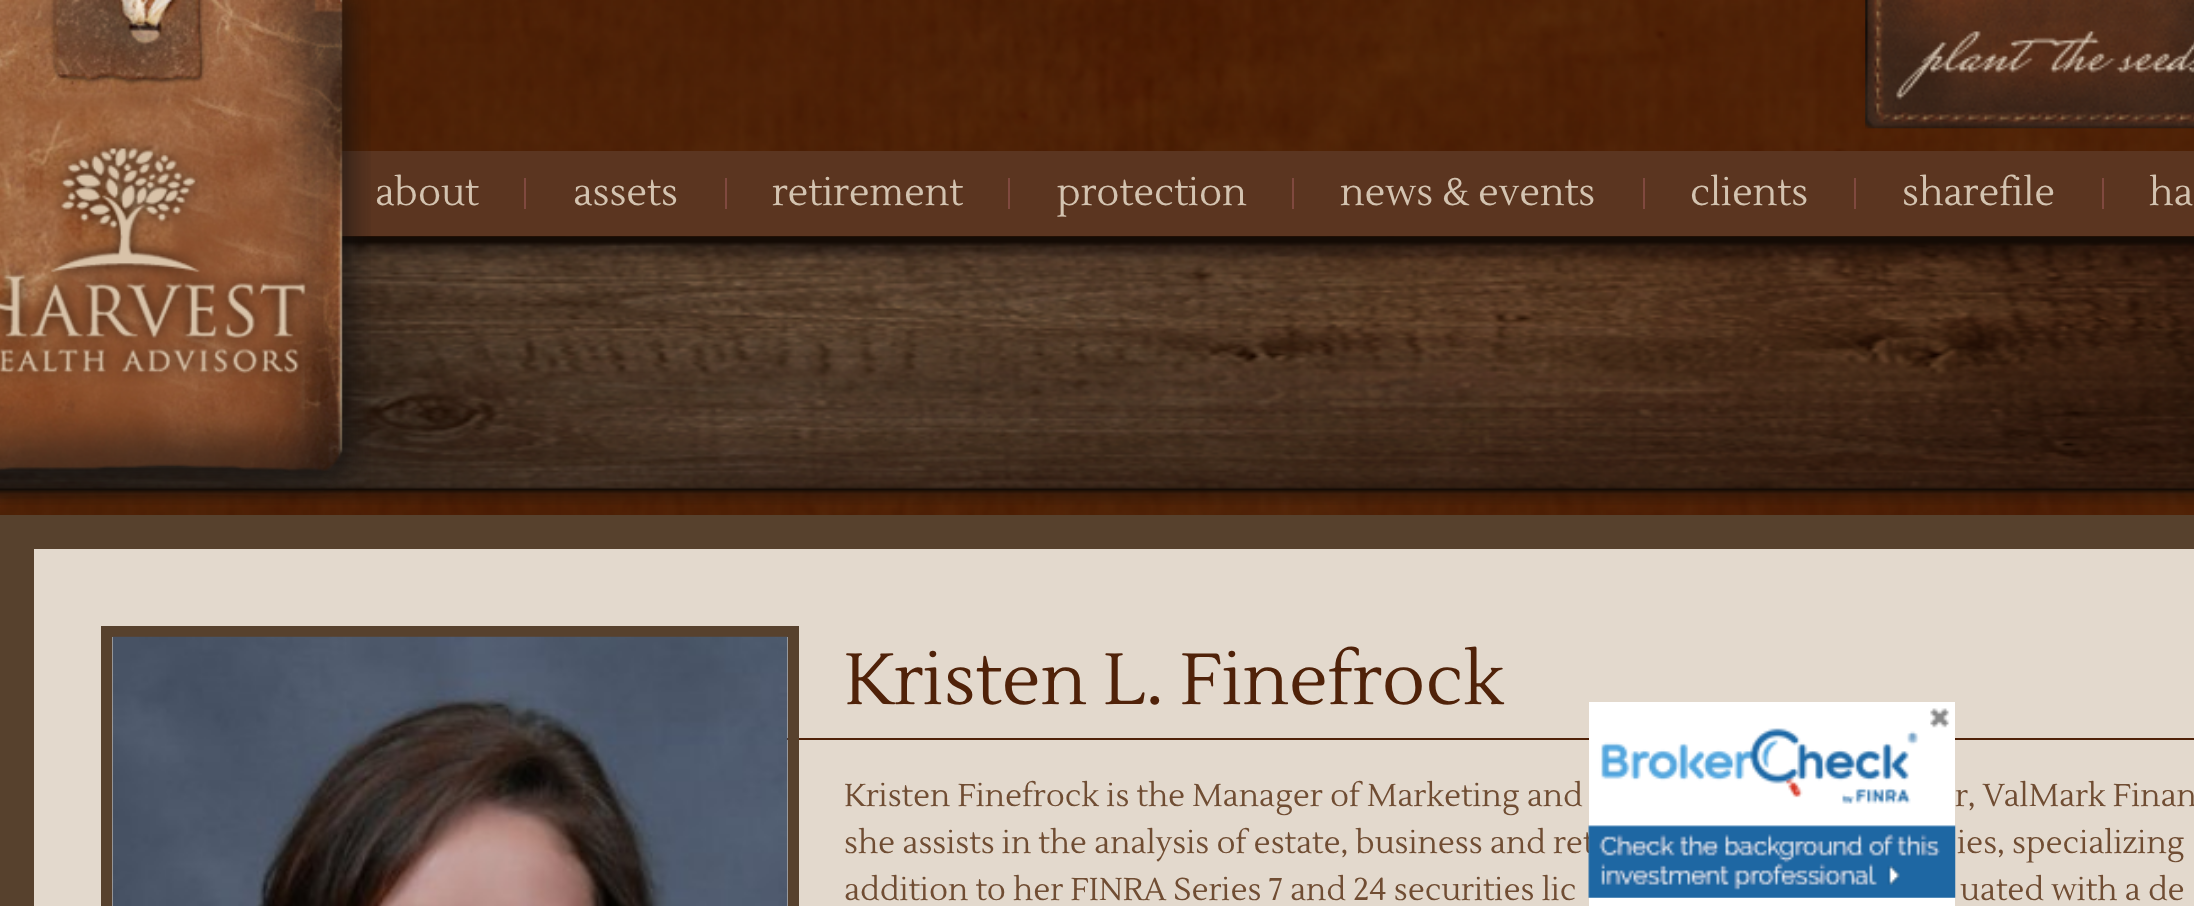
<?xml version="1.0" encoding="UTF-8"?>
<svg xmlns="http://www.w3.org/2000/svg" xmlns:xlink="http://www.w3.org/1999/xlink" width="2194" height="906">
  <rect width="100%" height="100%" fill="#ffffff" />
  <image x="0" y="0" width="2194" height="515" xlink:href="image1.png" />
  <rect x="341" y="151" width="1853" height="85" fill="#5b3520" />
  <image x="0" y="236" width="2194" height="269" xlink:href="image4.png" />
  <image x="0" y="0" width="371" height="499" xlink:href="image2.png" />
  <image x="1865" y="0" width="329" height="129" xlink:href="image3.png" />
  <rect x="524" y="178" width="2" height="31" fill="#80493f" />
  <rect x="725" y="178" width="2" height="31" fill="#80493f" />
  <rect x="1008" y="178" width="2" height="31" fill="#80493f" />
  <rect x="1292" y="178" width="2" height="31" fill="#80493f" />
  <rect x="1643" y="178" width="2" height="31" fill="#80493f" />
  <rect x="1854" y="178" width="2" height="31" fill="#80493f" />
  <rect x="2102" y="178" width="2" height="31" fill="#80493f" />
  <rect y="515" width="2194" height="391" fill="#57412d" />
  <rect x="34" y="549" width="2160" height="357" fill="#e3d9cd" />
  <rect x="787" y="738" width="1407" height="2" fill="#502209" />
  <rect x="106.5" y="631.5" width="687" height="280" fill="none" stroke="#57412d" stroke-width="11" />
  <image x="112" y="636" width="676" height="270" xlink:href="image5.png" />
  <text x="375" y="205" style="font-family: Lustria; font-size: 38.25px; fill: #d3c3b0">about</text>
  <text x="573" y="205" style="font-family: Lustria; font-size: 38.25px; fill: #d3c3b0">assets</text>
  <text x="772" y="205" style="font-family: Lustria; font-size: 38.25px; fill: #d3c3b0">retirement</text>
  <text x="1057" y="205" style="font-family: Lustria; font-size: 38.25px; fill: #d3c3b0">protection</text>
  <text x="1340" y="205" style="font-family: Lustria; font-size: 38.25px; fill: #d3c3b0">news &amp; events</text>
  <text x="1690" y="205" style="font-family: Lustria; font-size: 38.25px; fill: #d3c3b0">clients</text>
  <text x="1902" y="205" style="font-family: Lustria; font-size: 38.25px; fill: #d3c3b0">sharefile</text>
  <text x="2149" y="205" style="font-family: Lustria; font-size: 38.25px; fill: #d3c3b0">ha</text>
  <text x="844" y="704" style="font-family: Lustria; font-size: 72px; fill: #502209">Kristen L. Finefrock</text>
  <text x="844" y="806" style="font-family: Lustria; font-size: 31.5px; fill: #704d33">Kristen Finefrock is the Manager of Marketing and</text>
  <text x="1955" y="806" style="font-family: Lustria; font-size: 31.5px; fill: #704d33">r, ValMark Finan</text>
  <text x="844" y="853" style="font-family: Lustria; font-size: 31.5px; fill: #704d33">she assists in the analysis of estate, business and ret</text>
  <text x="1957" y="853" style="font-family: Lustria; font-size: 31.5px; fill: #704d33">ies, specializing</text>
  <text x="844" y="900" style="font-family: Lustria; font-size: 31.5px; fill: #704d33">addition to her FINRA Series 7 and 24 securities lic</text>
  <text x="1960" y="900" style="font-family: Lustria; font-size: 31.5px; fill: #704d33">uated with a de</text>
  <rect x="1589" y="702" width="366" height="204" fill="#ffffff" />
  <image x="1588" y="708" width="368" height="190" xlink:href="image6.png" />
</svg>
